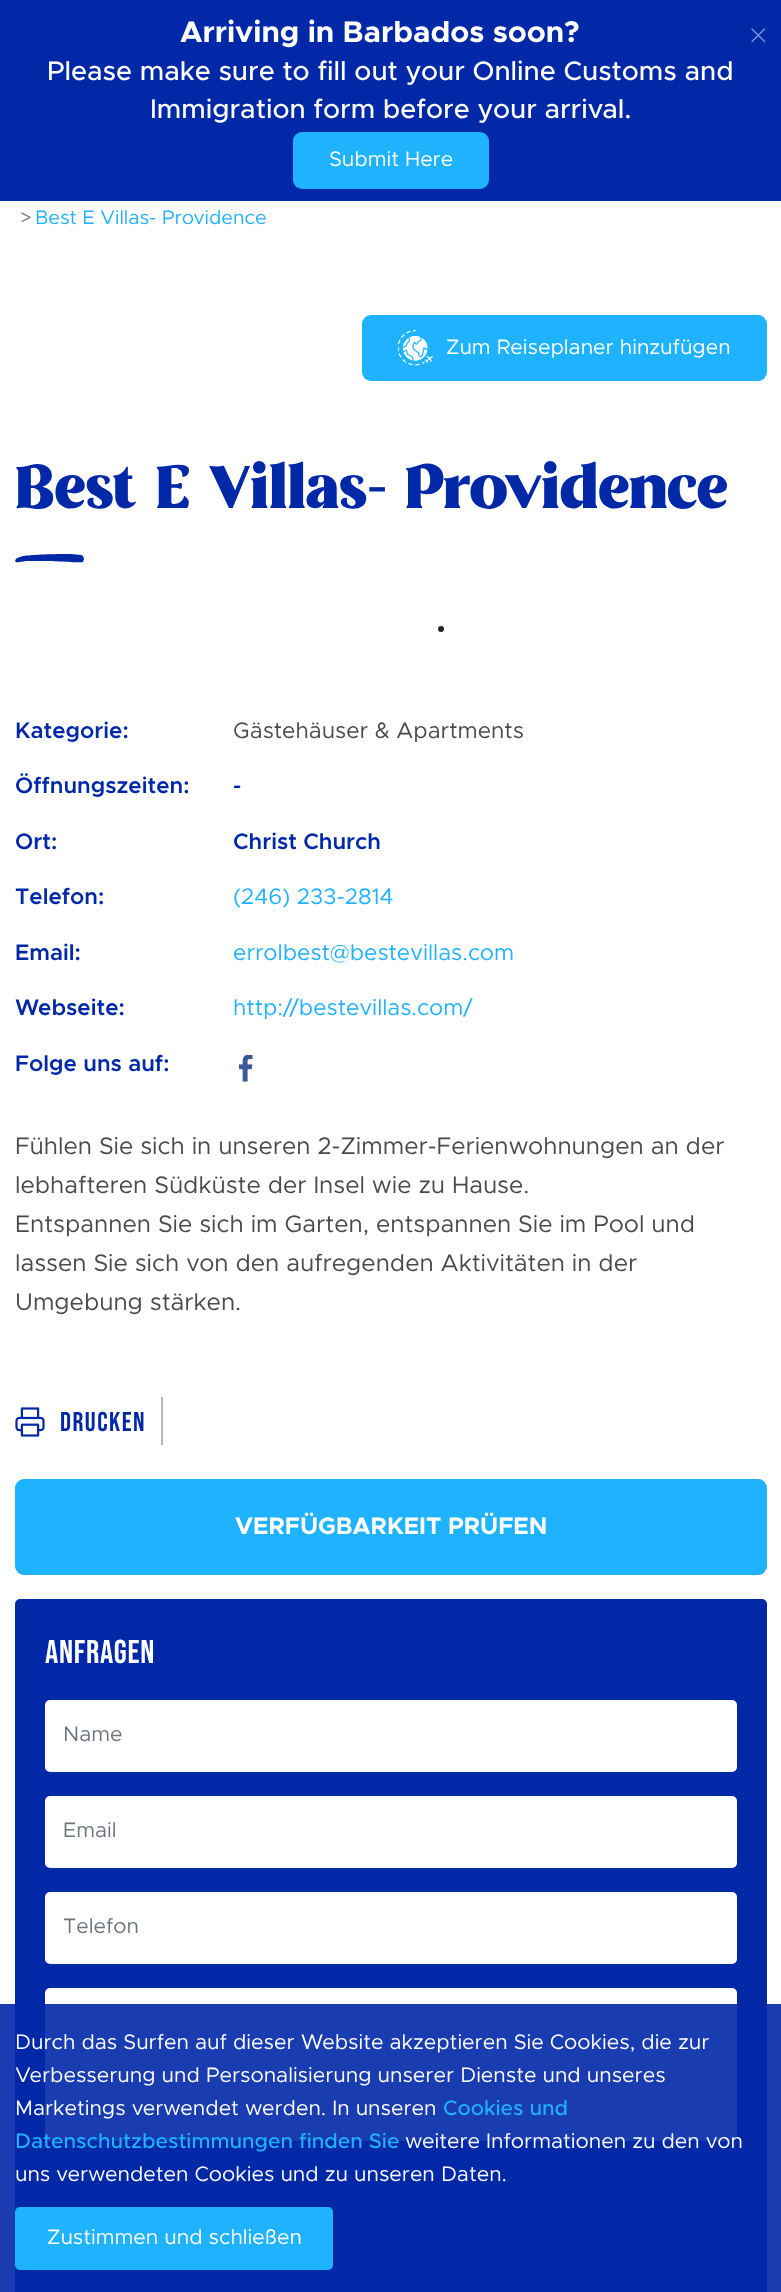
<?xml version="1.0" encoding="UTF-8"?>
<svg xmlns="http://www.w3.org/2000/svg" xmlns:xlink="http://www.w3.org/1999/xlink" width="781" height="2292">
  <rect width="100%" height="100%" fill="#ffffff" />
  <rect width="781" height="201" fill="#0028a7" />
  <path d="M 752 29 l 12.5 12.5 m -12.5 0 l 12.5 -12.5" fill="none" stroke="#8094d3" stroke-width="1.4" stroke-linecap="round" stroke-linejoin="round" />
  <rect x="293" y="132" width="196" height="57" rx="9" fill="#1eb2ff" />
  <rect x="362" y="315" width="405" height="66" rx="9" fill="#1eb2ff" />
  <image x="398" y="330" width="35" height="36" xlink:href="image1.png" />
  <path d="M 83 556 l 1 3 l -1 3 c -2 1 -32 -1 -36 -1 h -21 c -1 0 -9 2 -10 1 c -2 -1 0 -3 1 -4 l 6 -2 c 5 -1 56 -4 60 0 z" fill="#0028a7" />
  <circle cx="441" cy="629" r="3" fill="#212529" />
  <image x="239" y="1055" width="14" height="27" xlink:href="image2.png" />
  <rect x="161" y="1397" width="2" height="48" fill="#b8b8b8" />
  <image x="15" y="1407" width="30" height="30" xlink:href="image3.png" />
  <rect x="15" y="1479" width="752" height="96" rx="9" fill="#1eb2ff" />
  <rect x="15" y="1599" width="752" height="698" rx="5" fill="#0028a7" />
  <rect x="45" y="1700" width="692" height="72" rx="5" fill="#ffffff" />
  <rect x="45" y="1796" width="692" height="72" rx="5" fill="#ffffff" />
  <rect x="45" y="1892" width="692" height="72" rx="5" fill="#ffffff" />
  <rect x="45" y="1988" width="692" height="153" rx="5" fill="#ffffff" />
  <rect y="2004" width="781" height="288" fill="#0028a7" fill-opacity="0.9" />
  <rect x="15" y="2207" width="318" height="63" rx="5" fill="#1eb2ff" />
  <text x="180" y="42" style="font-family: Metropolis; font-size: 30px; font-weight: bold; fill: #ffffff">Arriving in Barbados soon?</text>
  <text x="47" y="80" style="font-family: Metropolis; font-size: 27px; font-weight: 500; fill: #ffffff">Please make sure to fill out your Online Customs and</text>
  <text x="150" y="118" style="font-family: Metropolis; font-size: 27px; font-weight: 500; fill: #ffffff">Immigration form before your arrival.</text>
  <text x="329" y="166" style="font-family: Metropolis; font-size: 21px; fill: #ffffff">Submit Here</text>
  <text x="20" y="224" style="font-family: Metropolis; font-size: 19.5px; fill: #6c757d">&gt;</text>
  <text x="35" y="224" style="font-family: Metropolis; font-size: 19.5px; fill: #20b1ff">Best E Villas- Providence</text>
  <text x="446" y="354" style="font-family: Metropolis; font-size: 21px; fill: #ffffff">Zum Reiseplaner hinzufügen</text>
  <text x="15" y="508" style="font-family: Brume; font-size: 60px; fill: #0028a7">Best E Villas- Providence</text>
  <text x="15" y="738" style="font-family: Metropolis; font-size: 22.5px; font-weight: 600; fill: #0028a7">Kategorie:</text>
  <text x="233" y="738" style="font-family: Metropolis; font-size: 22.5px; fill: #4a4a4a">Gästehäuser &amp; Apartments</text>
  <text x="15" y="793" style="font-family: Metropolis; font-size: 22.5px; font-weight: 600; fill: #0028a7">Öffnungszeiten:</text>
  <text x="233" y="793" style="font-family: Metropolis; font-size: 22.5px; font-weight: 600; fill: #0028a7">-</text>
  <text x="15" y="849" style="font-family: Metropolis; font-size: 22.5px; font-weight: 600; fill: #0028a7">Ort:</text>
  <text x="233" y="849" style="font-family: Metropolis; font-size: 22.5px; font-weight: 600; fill: #0028a7">Christ Church</text>
  <text x="15" y="904" style="font-family: Metropolis; font-size: 22.5px; font-weight: 600; fill: #0028a7">Telefon:</text>
  <text x="233" y="904" style="font-family: Metropolis; font-size: 22.5px; fill: #20b1ff">(246) 233-2814</text>
  <text x="15" y="960" style="font-family: Metropolis; font-size: 22.5px; font-weight: 600; fill: #0028a7">Email:</text>
  <text x="233" y="960" style="font-family: Metropolis; font-size: 22.5px; fill: #20b1ff">errolbest@bestevillas.com</text>
  <text x="15" y="1015" style="font-family: Metropolis; font-size: 22.5px; font-weight: 600; fill: #0028a7">Webseite:</text>
  <text x="233" y="1015" style="font-family: Metropolis; font-size: 22.5px; fill: #20b1ff">http://bestevillas.com/</text>
  <text x="15" y="1071" style="font-family: Metropolis; font-size: 22.5px; font-weight: 600; fill: #0028a7">Folge uns auf:</text>
  <text x="15" y="1154" style="font-family: Metropolis; font-size: 24px; fill: #4a4a4a">Fühlen Sie sich in unseren 2-Zimmer-Ferienwohnungen an der</text>
  <text x="15" y="1193" style="font-family: Metropolis; font-size: 24px; fill: #4a4a4a">lebhafteren Südküste der Insel wie zu Hause.</text>
  <text x="15" y="1232" style="font-family: Metropolis; font-size: 24px; fill: #4a4a4a">Entspannen Sie sich im Garten, entspannen Sie im Pool und</text>
  <text x="15" y="1271" style="font-family: Metropolis; font-size: 24px; fill: #4a4a4a">lassen Sie sich von den aufregenden Aktivitäten in der</text>
  <text x="15" y="1310" style="font-family: Metropolis; font-size: 24px; fill: #4a4a4a">Umgebung stärken.</text>
  <text x="60" y="1431" style="font-family: Bebas Neue; font-size: 27px; letter-spacing: 1.5px; fill: #0028a7">Drucken</text>
  <text x="235" y="1534" style="font-family: Metropolis; font-size: 24px; font-weight: bold; fill: #ffffff">VERFÜGBARKEIT PRÜFEN</text>
  <text x="45" y="1663" style="font-family: Bebas Neue; font-size: 33px; letter-spacing: 0.75px; fill: #ffffff">ANFRAGEN</text>
  <text x="63" y="1741" style="font-family: Metropolis; font-size: 21px; fill: #6c757d">Name</text>
  <text x="63" y="1837" style="font-family: Metropolis; font-size: 21px; fill: #6c757d">Email</text>
  <text x="63" y="1933" style="font-family: Metropolis; font-size: 21px; fill: #6c757d">Telefon</text>
  <text x="15" y="2049" style="font-family: Metropolis; font-size: 21px; fill: #ffffff">Durch das Surfen auf dieser Website akzeptieren Sie Cookies, die zur</text>
  <text x="15" y="2082" style="font-family: Metropolis; font-size: 21px; fill: #ffffff">Verbesserung und Personalisierung unserer Dienste und unseres</text>
  <text x="15" y="2115" style="font-family: Metropolis; font-size: 21px; fill: #ffffff">Marketings verwendet werden. In unseren</text>
  <text x="443" y="2115" style="font-family: Metropolis; font-size: 21px; font-weight: 500; fill: #20b1ff">Cookies und</text>
  <text x="15" y="2148" style="font-family: Metropolis; font-size: 21px; font-weight: 500; fill: #20b1ff">Datenschutzbestimmungen finden Sie</text>
  <text x="405" y="2148" style="font-family: Metropolis; font-size: 21px; fill: #ffffff">weitere Informationen zu den von</text>
  <text x="15" y="2181" style="font-family: Metropolis; font-size: 21px; fill: #ffffff">uns verwendeten Cookies und zu unseren Daten.</text>
  <text x="47" y="2244" style="font-family: Metropolis; font-size: 21px; fill: #ffffff">Zustimmen und schließen</text>
</svg>
